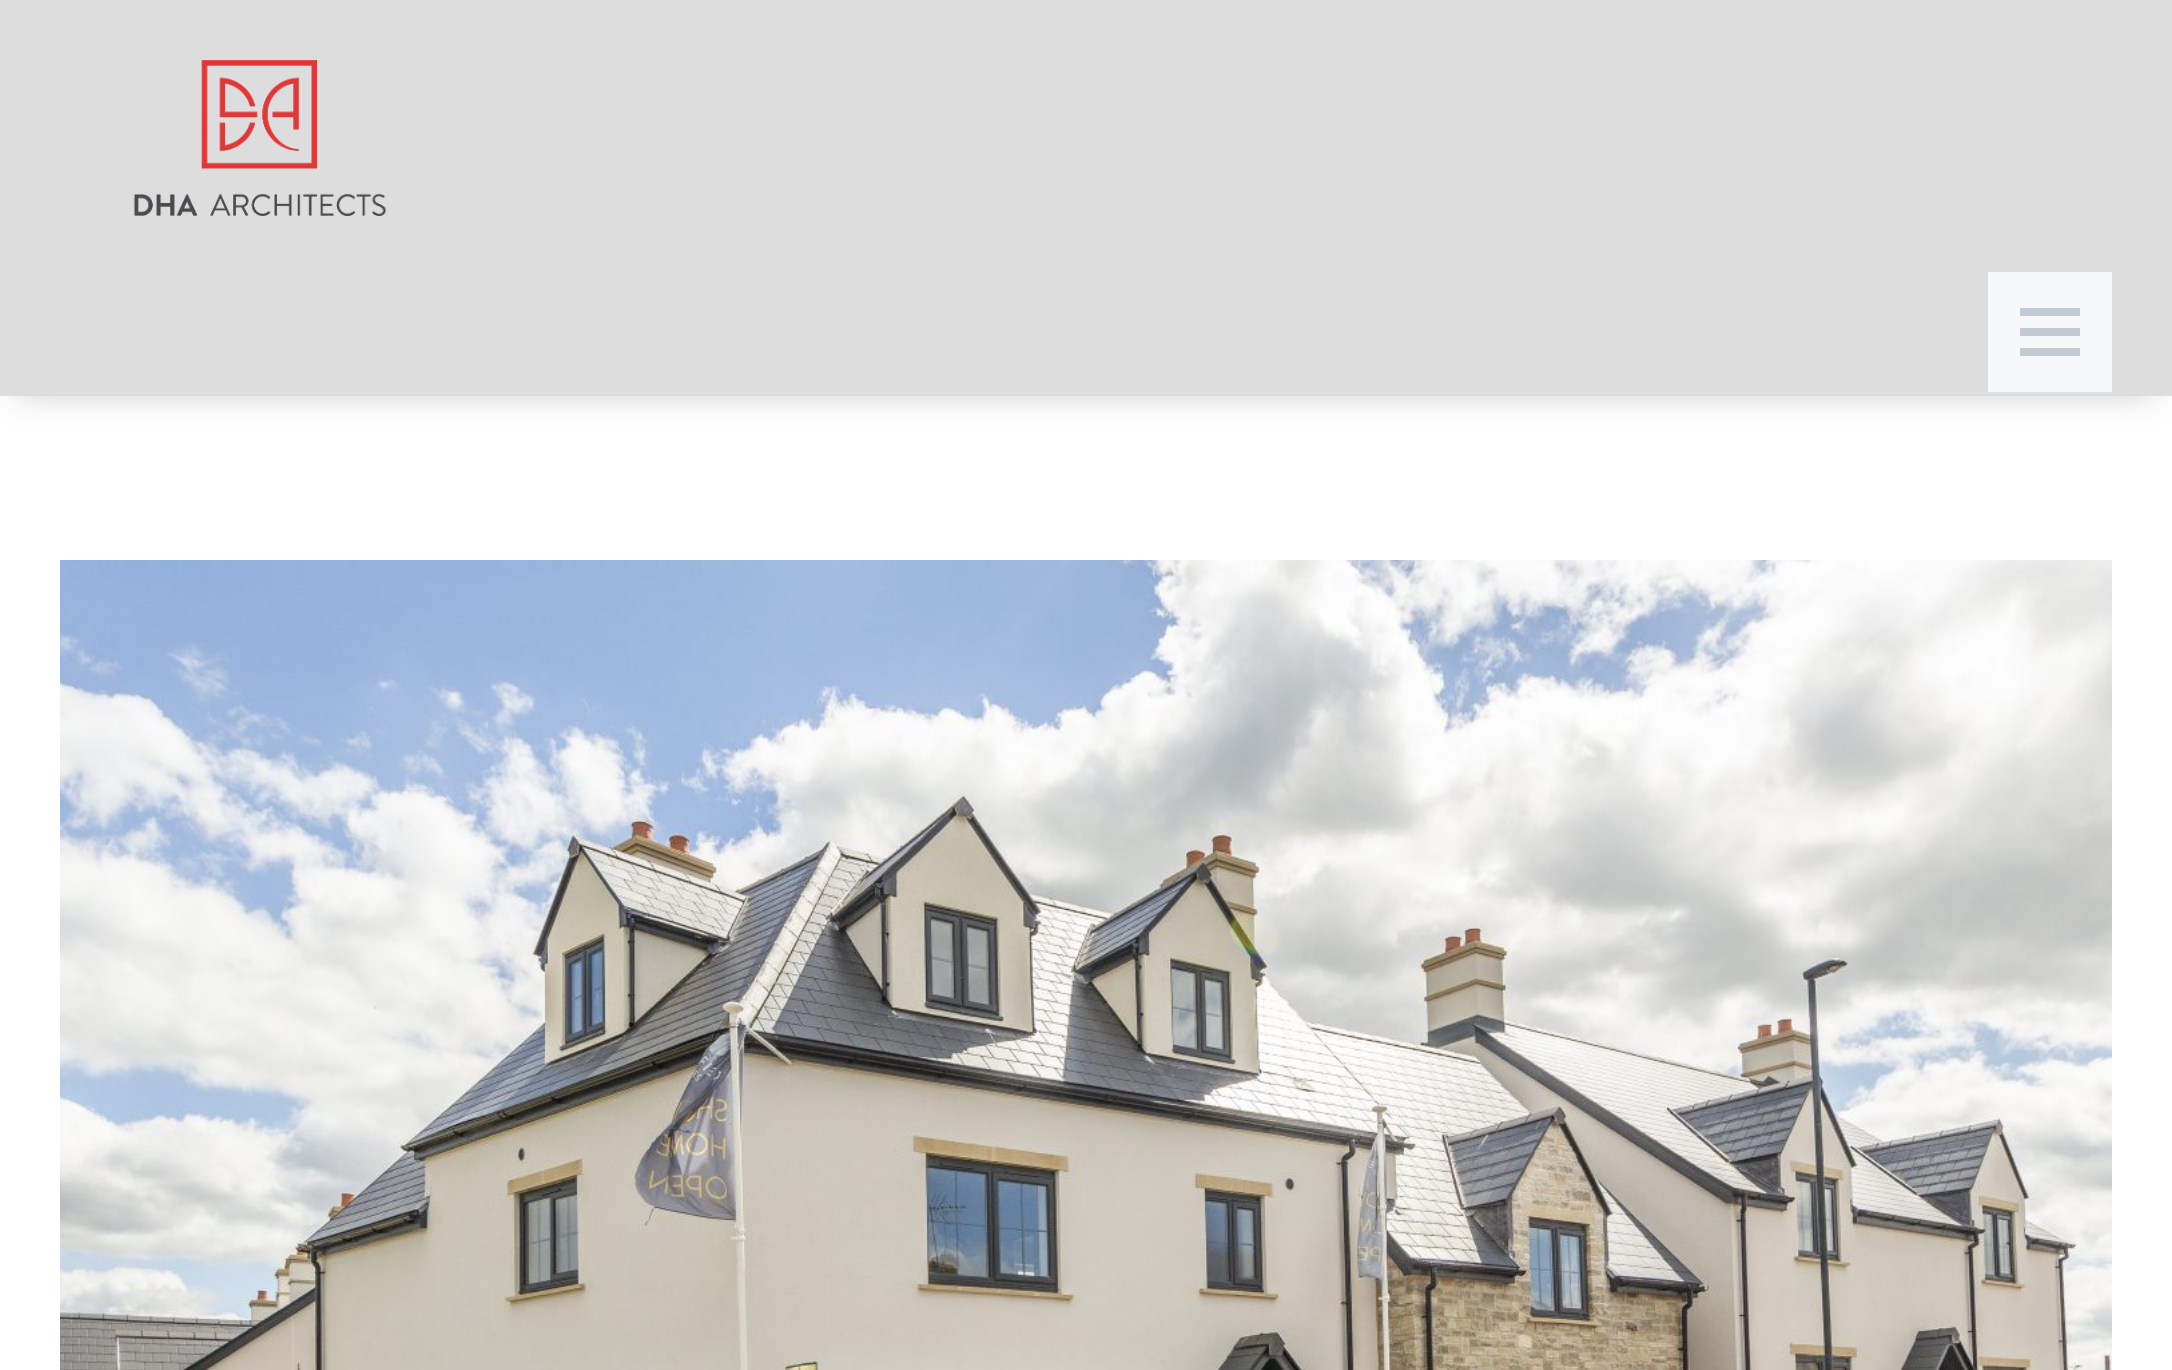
<?xml version="1.0" encoding="UTF-8"?>
<svg xmlns="http://www.w3.org/2000/svg" xmlns:xlink="http://www.w3.org/1999/xlink" width="2172" height="1370">
  <rect width="100%" height="100%" fill="#ffffff" />
  <rect x="16" y="28" width="2140" height="364" fill="#1a1a1a" fill-opacity="0.25" filter="blur(18px)" />
  <rect width="2172" height="396" fill="#dddddd" />
  <image x="133" y="60" width="254" height="157" xlink:href="image1.png" />
  <rect x="1988" y="272" width="124" height="120" fill="#f6f7f9" />
  <rect x="2020" y="308" width="60" height="8" fill="#c1c9d2" />
  <rect x="2020" y="328" width="60" height="8" fill="#c1c9d2" />
  <rect x="2020" y="348" width="60" height="8" fill="#c1c9d2" />
  <image x="60" y="560" width="2052" height="810" xlink:href="image2.png" />
</svg>
